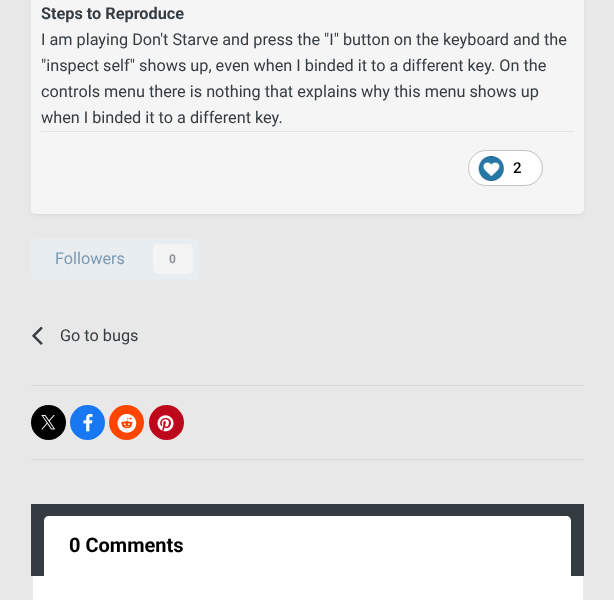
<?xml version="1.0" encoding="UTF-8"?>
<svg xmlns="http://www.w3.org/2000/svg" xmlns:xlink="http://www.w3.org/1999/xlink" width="614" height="600">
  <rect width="100%" height="100%" fill="#e8e8e8" />
  <rect x="33" y="-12" width="550" height="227" rx="4" fill="#2d3748" fill-opacity="0.1" filter="blur(2.5px)" />
  <rect x="31" y="-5" width="553" height="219" rx="5" fill="#f5f5f5" />
  <rect x="41" y="131" width="533" height="1" fill="#e2e3e3" />
  <rect x="469" y="151" width="72" height="34" rx="17" fill="#ffffff" />
  <rect x="468.5" y="150.5" width="74" height="35" rx="17.5" fill="none" stroke="#737d87" stroke-opacity="0.4" />
  <image x="478" y="156" width="26" height="25" xlink:href="image1.png" />
  <rect x="31" y="239" width="168" height="41" rx="5" fill="#e8edf1" />
  <rect x="153" y="244" width="40" height="30" rx="5" fill="#f4f4f4" />
  <image x="32" y="326" width="11" height="19" xlink:href="image2.png" />
  <rect x="31" y="385" width="553" height="1" fill="#dadadb" />
  <circle cx="48.5" cy="422.5" r="17.5" fill="#000000" />
  <image x="41" y="415" width="15" height="15" xlink:href="image3.png" />
  <circle cx="87.5" cy="422.5" r="17.5" fill="#1778f2" />
  <image x="83" y="413" width="10" height="19" xlink:href="image4.png" />
  <circle cx="126.5" cy="422.5" r="17.5" fill="#ff4500" />
  <image x="117" y="413" width="20" height="20" xlink:href="image5.png" />
  <circle cx="166.5" cy="422.5" r="17.5" fill="#bd081c" />
  <image x="157" y="415" width="17" height="17" xlink:href="image6.png" />
  <rect x="31" y="459" width="553" height="1" fill="#dadadb" />
  <rect x="31" y="504" width="553" height="72" fill="#353c41" />
  <path d="M 49 516 h 517 c 3 0 5 2 5 5 v 55 h -527 v -55 c 0 -3 2 -5 5 -5 z" fill="#ffffff" />
  <rect x="33" y="576" width="550" height="24" fill="#ffffff" />
  <text x="41" y="19" style="font-family: Roboto; font-size: 16.25px; font-weight: bold; fill: #353c41">Steps to Reproduce</text>
  <text x="41" y="45" style="font-family: Roboto; font-size: 16.25px; fill: #353c41">I am playing Don't Starve and press the "I" button on the keyboard and the</text>
  <text x="41" y="71" style="font-family: Roboto; font-size: 16.25px; fill: #353c41">"inspect self" shows up, even when I binded it to a different key. On the</text>
  <text x="41" y="97" style="font-family: Roboto; font-size: 16.25px; fill: #353c41">controls menu there is nothing that explains why this menu shows up</text>
  <text x="41" y="123" style="font-family: Roboto; font-size: 16.25px; fill: #353c41">when I binded it to a different key.</text>
  <text x="513" y="173" style="font-family: Roboto; font-size: 15px; font-weight: 500; fill: #000000">2</text>
  <text x="55" y="264" style="font-family: Roboto; font-size: 16.25px; fill: #7b9ab1">Followers</text>
  <text x="169" y="263" style="font-family: Roboto; font-size: 12px; font-weight: bold; fill: #8f9295">0</text>
  <text x="60" y="341" style="font-family: Roboto; font-size: 16.25px; fill: #353c41">Go to bugs</text>
  <text x="69" y="552" style="font-family: Roboto; font-size: 20px; font-weight: bold; fill: #000000">0 Comments</text>
</svg>
